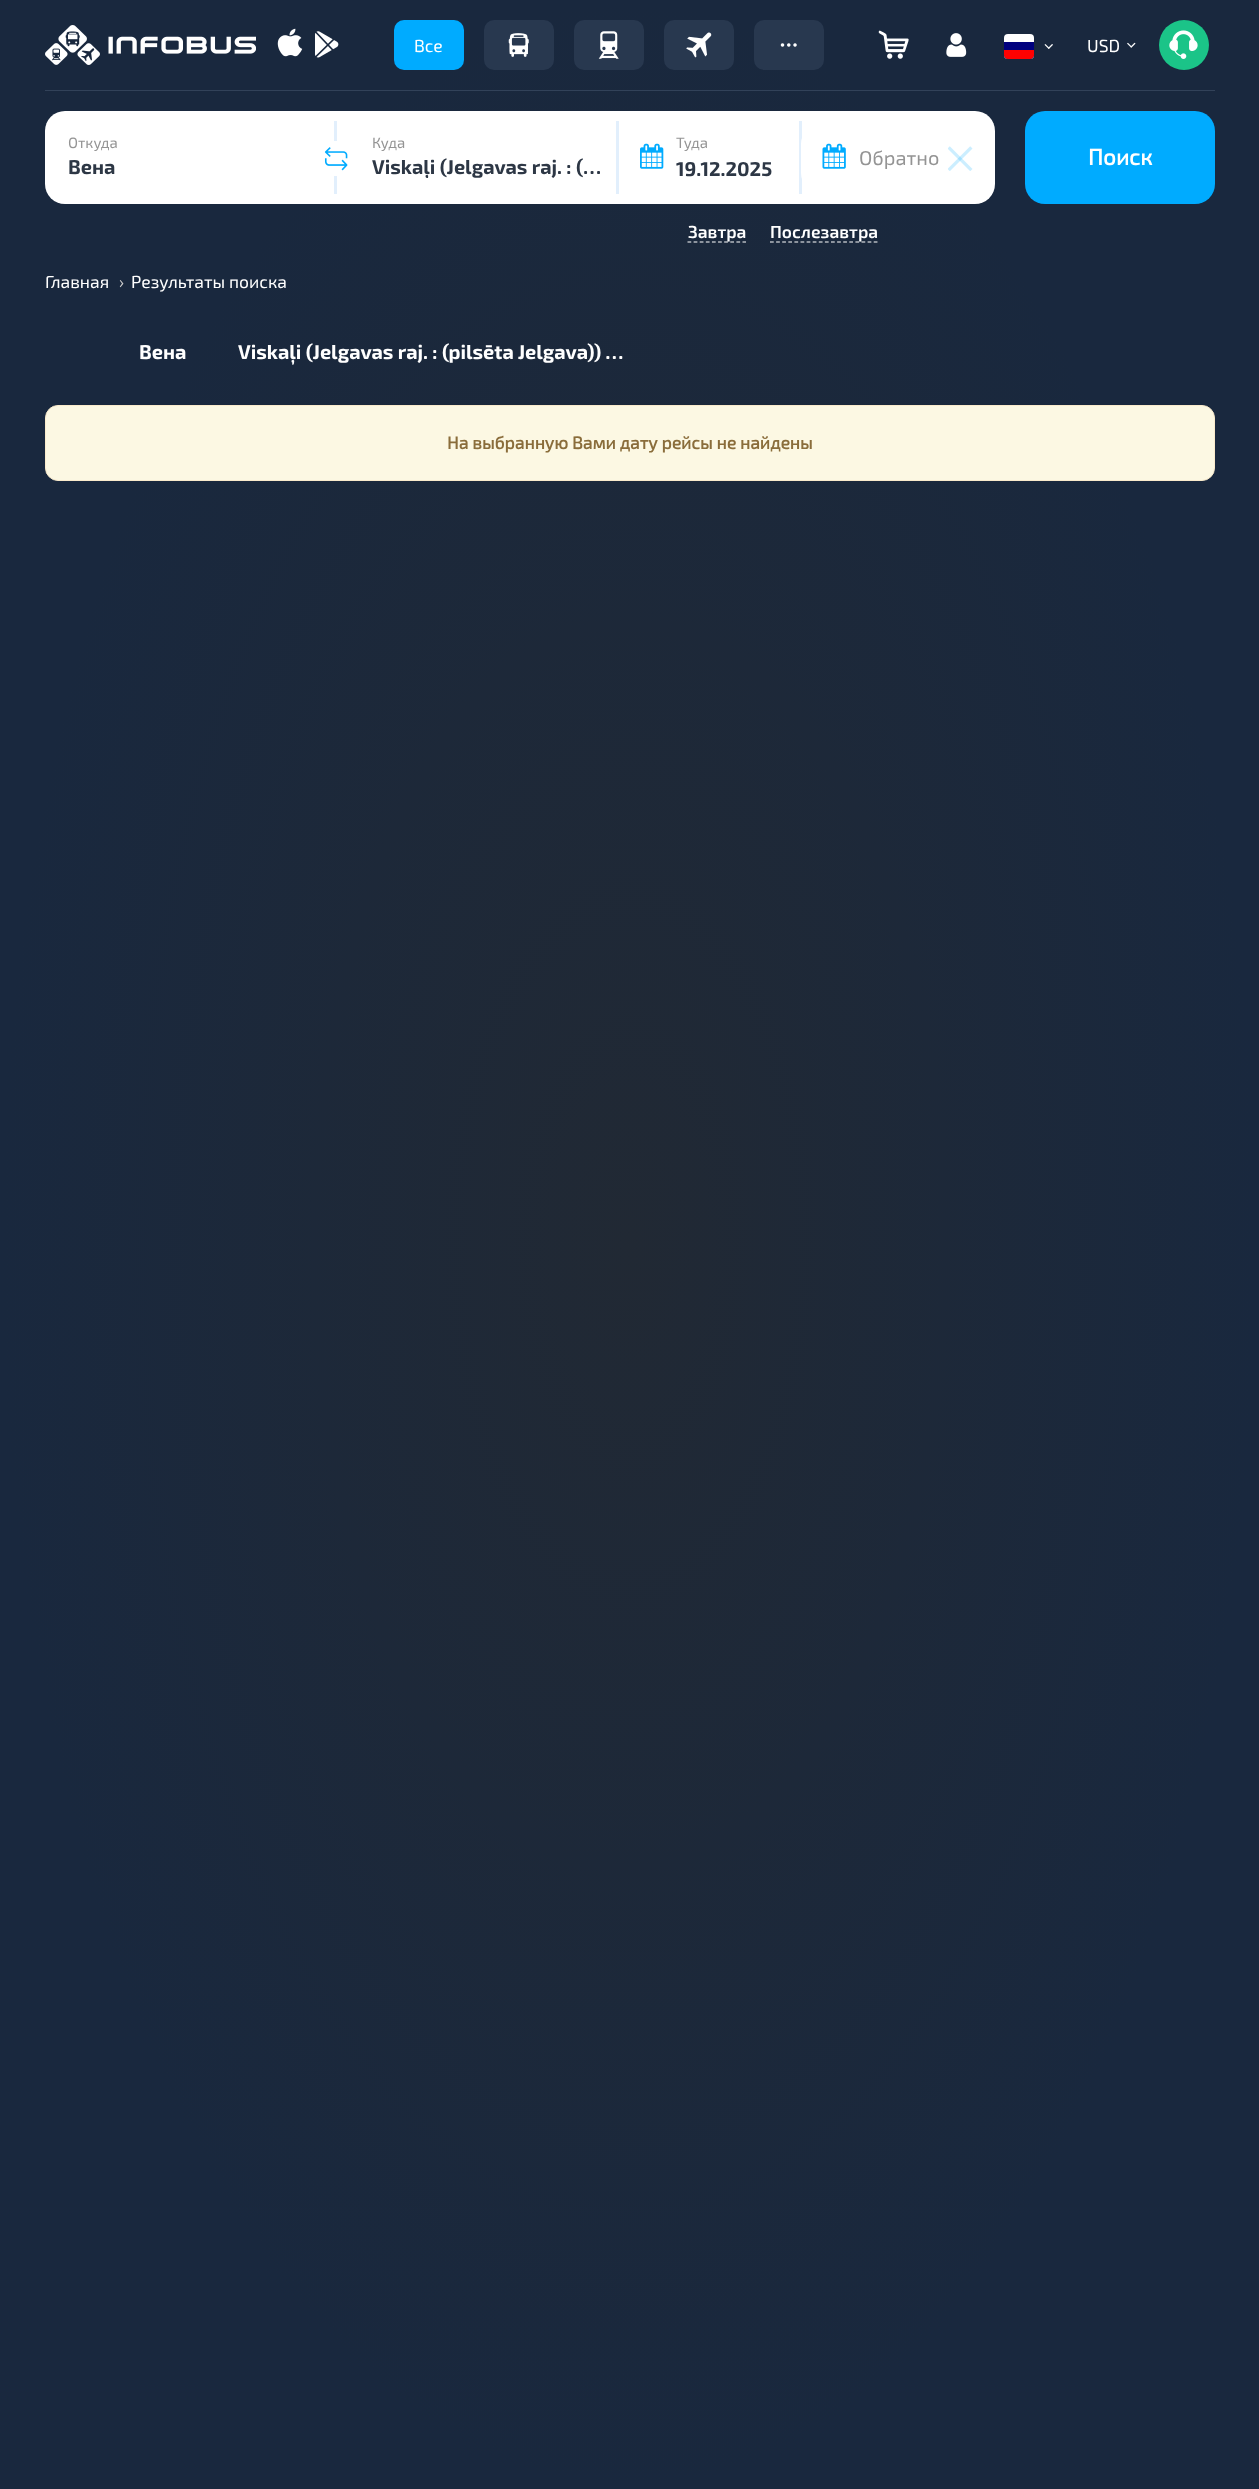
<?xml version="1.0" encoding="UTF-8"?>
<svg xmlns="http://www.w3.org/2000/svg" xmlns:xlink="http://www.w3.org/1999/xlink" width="1259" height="2489">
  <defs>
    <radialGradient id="g1" gradientUnits="userSpaceOnUse" cx="0" cy="0" r="1" gradientTransform="matrix(630 0 0 1245 630 1245)"><stop offset="0" stop-color="#212934" /><stop offset="1" stop-color="#19283e" /></radialGradient>
    <clipPath id="clip1"><rect x="371" y="154" width="235" height="24" /></clipPath>
  </defs>
  <rect width="100%" height="100%" fill="#ffffff" />
  <rect width="1259" height="2489" fill="url(#g1)" />
  <image x="45" y="25" width="211" height="40" xlink:href="image1.png" />
  <image x="277" y="28" width="26" height="29" xlink:href="image2.png" />
  <image x="315" y="31" width="24" height="27" xlink:href="image3.png" />
  <rect x="394" y="20" width="70" height="50" rx="10" fill="#00abff" />
  <rect x="484" y="20" width="70" height="50" rx="10" fill="#28384f" />
  <image x="508" y="33" width="21" height="24" xlink:href="image4.png" />
  <rect x="574" y="20" width="70" height="50" rx="10" fill="#28384f" />
  <image x="598" y="31" width="21" height="28" xlink:href="image5.png" />
  <rect x="664" y="20" width="70" height="50" rx="10" fill="#28384f" />
  <image x="686" y="32" width="26" height="26" xlink:href="image6.png" />
  <rect x="754" y="20" width="70" height="50" rx="10" fill="#28384f" />
  <image x="780" y="43" width="17" height="4" xlink:href="image7.png" />
  <image x="878" y="30" width="31" height="29" xlink:href="image8.png" />
  <image x="946" y="33" width="21" height="24" xlink:href="image9.png" />
  <rect x="1004" y="34" width="30" height="25" rx="4" fill="#ffffff" />
  <path d="M 1004 42 h 30 v 13 c 0 2 -2 4 -4 4 h -22 c -2 0 -4 -2 -4 -4 z" fill="#01017e" />
  <path d="M 1004 50 h 30 v 5 c 0 2 -2 4 -4 4 h -22 c -2 0 -4 -2 -4 -4 z" fill="#fe0101" />
  <image x="1044" y="44" width="9" height="5" xlink:href="image10.png" />
  <image x="1127" y="42" width="9" height="6" xlink:href="image11.png" />
  <circle cx="1184" cy="45" r="25" fill="#1bc488" />
  <image x="1169" y="30" width="29" height="29" xlink:href="image12.png" />
  <rect x="45" y="90" width="1170" height="1" fill="#324259" />
  <rect x="45" y="111" width="950" height="93" rx="20" fill="#ffffff" />
  <rect x="334" y="121" width="3" height="73" fill="#e2effc" />
  <rect x="334" y="141" width="3" height="35" fill="#ffffff" />
  <image x="324" y="147" width="24" height="24" xlink:href="image13.png" />
  <rect x="616" y="121" width="3" height="73" fill="#e2effc" />
  <image x="640" y="143" width="24" height="26" xlink:href="image14.png" />
  <rect x="799" y="121" width="3" height="73" fill="#e2effc" />
  <rect x="801" y="124" width="184" height="69" rx="20" fill="#ffffff" />
  <image x="822" y="143" width="24" height="26" xlink:href="image15.png" />
  <image x="948" y="146" width="25" height="25" xlink:href="image16.png" />
  <rect x="1025" y="111" width="190" height="93" rx="20" fill="#00abff" />
  <path d="M 687.5 242 h 58.5" fill="none" stroke="#ffffff" stroke-width="1.2" stroke-dasharray="3.75 2.36" />
  <path d="M 770 242 h 107.5" fill="none" stroke="#ffffff" stroke-width="1.2" stroke-dasharray="3.75 2.35" />
  <rect x="45.5" y="405.5" width="1169" height="75" rx="12.5" fill="#fcf8e3" stroke="#faebcc" />
  <text x="414" y="52" style="font-family: 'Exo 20'; font-size: 17.5px; fill: #ffffff">Все</text>
  <text x="1087" y="52" style="font-family: 'Exo 20'; font-size: 17.5px; fill: #ffffff">USD</text>
  <text x="68" y="148" style="font-family: 'Exo 20'; font-size: 15px; fill: #949494">Откуда</text>
  <text x="68" y="174" style="font-family: 'Exo 20'; font-size: 20px; font-weight: bold; fill: #2d3745">Вена</text>
  <text x="372" y="148" style="font-family: 'Exo 20'; font-size: 15px; fill: #949494">Куда</text>
  <g clip-path="url(#clip1)">
    <text x="372" y="174" style="font-family: 'Exo 20'; font-size: 20px; font-weight: bold; fill: #2d3745">Viskaļi (Jelgavas raj. : (…</text>
  </g>
  <text x="676" y="148" style="font-family: 'Exo 20'; font-size: 15px; fill: #949494">Туда</text>
  <text x="676" y="176" style="font-family: 'Exo 20'; font-size: 20px; font-weight: bold; fill: #2d3745">19.12.2025</text>
  <text x="859" y="165" style="font-family: 'Exo 20'; font-size: 20px; fill: #949494">Обратно</text>
  <text x="1088" y="165" style="font-family: 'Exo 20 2'; font-size: 22.5px; font-weight: bold; fill: #ffffff">Поиск</text>
  <text x="688" y="238" style="font-family: 'Exo 20'; font-size: 17.5px; font-weight: 600; fill: #ffffff">Завтра</text>
  <text x="770" y="238" style="font-family: 'Exo 20'; font-size: 17.5px; font-weight: 600; fill: #ffffff">Послезавтра</text>
  <text x="45" y="288" style="font-family: 'Exo 20'; font-size: 17.5px; fill: #ffffff">Главная</text>
  <text x="119" y="288" style="font-family: 'Exo 20'; font-size: 17.5px; fill: #cccccc">›</text>
  <text x="131" y="288" style="font-family: 'Exo 20'; font-size: 17.5px; fill: #ffffff">Результаты поиска</text>
  <text x="139" y="359" style="font-family: 'Exo 20'; font-size: 20px; font-weight: bold; fill: #ffffff">Вена</text>
  <text x="238" y="359" style="font-family: 'Exo 20'; font-size: 20px; font-weight: bold; fill: #ffffff">Viskaļi (Jelgavas raj. : (pilsēta Jelgava)) …</text>
  <text x="447" y="449" style="font-family: 'Exo 20 2'; font-size: 17.5px; font-weight: bold; fill: #8a6d3b">На выбранную Вами дату рейсы не найдены</text>
</svg>
